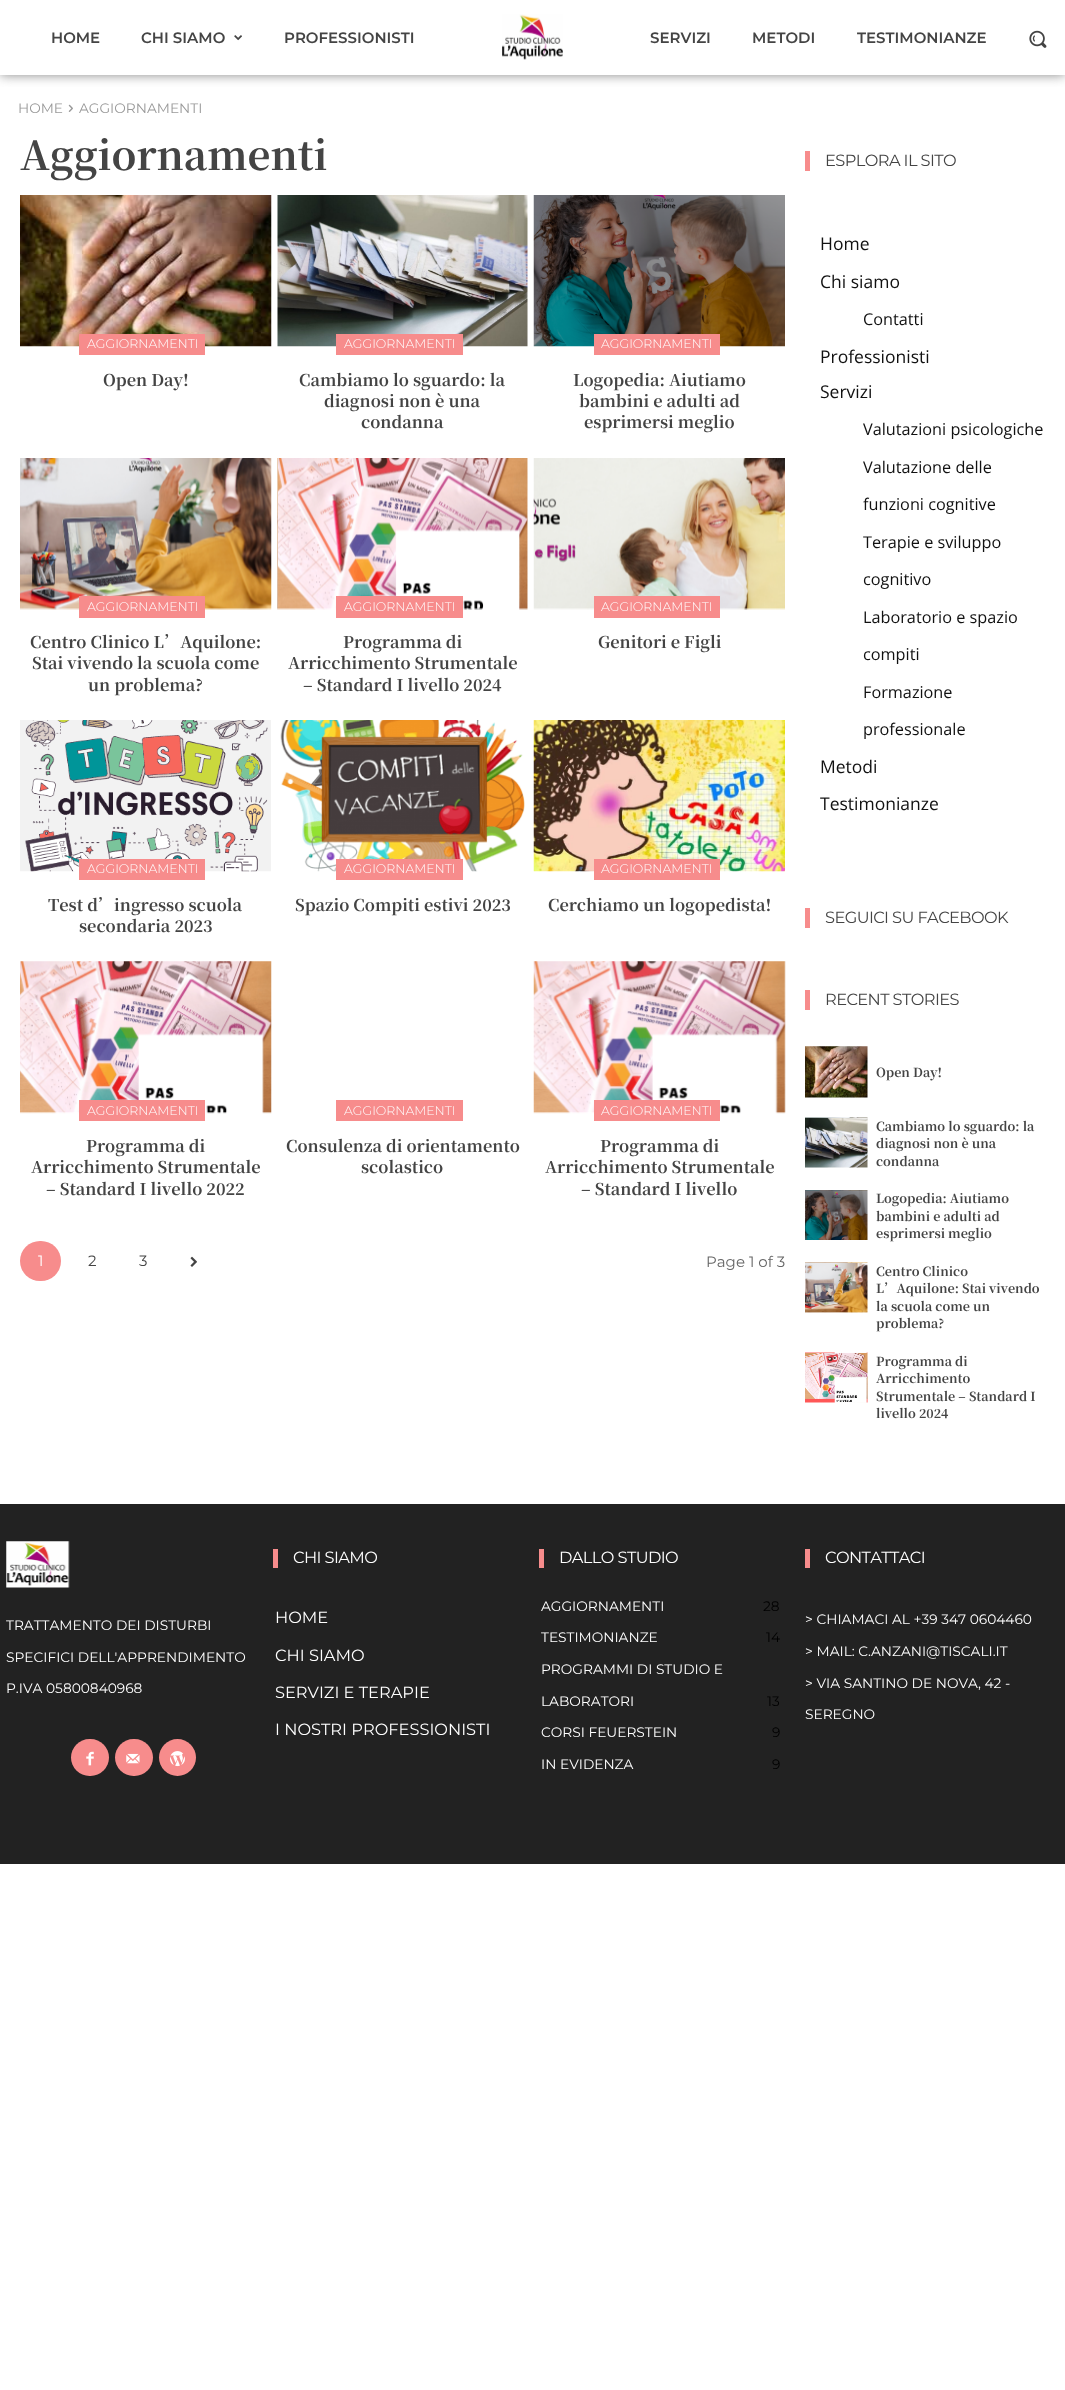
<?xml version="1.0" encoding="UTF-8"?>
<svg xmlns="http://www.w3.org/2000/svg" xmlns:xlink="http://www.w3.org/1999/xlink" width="1065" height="2390">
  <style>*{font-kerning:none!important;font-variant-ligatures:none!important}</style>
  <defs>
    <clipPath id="clip1"><rect x="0" y="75" width="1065" height="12" /></clipPath>
  </defs>
  <rect width="100%" height="100%" fill="#ffffff" />
  <g clip-path="url(#clip1)">
    <rect width="1065" height="75" fill="#888888" filter="blur(6px)" />
  </g>
  <image x="234" y="35" width="8" height="6" xlink:href="image1.png" />
  <image x="502" y="14" width="61" height="46" xlink:href="image2.png" />
  <image x="1029" y="30" width="18" height="18" xlink:href="image3.png" />
  <image x="68" y="104" width="5" height="8" xlink:href="image4.png" />
  <image x="20" y="195" width="252" height="152" xlink:href="image5.png" />
  <rect x="79" y="334" width="126" height="21" fill="#f78c8c" />
  <image x="277" y="195" width="251" height="152" xlink:href="image6.png" />
  <rect x="336" y="334" width="127" height="21" fill="#f78c8c" />
  <image x="533" y="195" width="252" height="152" xlink:href="image7.png" />
  <rect x="594" y="334" width="126" height="21" fill="#f78c8c" />
  <image x="20" y="458" width="252" height="152" xlink:href="image8.png" />
  <rect x="79" y="596" width="126" height="22" fill="#f78c8c" />
  <image x="277" y="458" width="251" height="152" xlink:href="image9.png" />
  <rect x="336" y="596" width="127" height="22" fill="#f78c8c" />
  <image x="533" y="458" width="252" height="152" xlink:href="image10.png" />
  <rect x="594" y="596" width="126" height="22" fill="#f78c8c" />
  <image x="20" y="720" width="251" height="152" xlink:href="image11.png" />
  <rect x="79" y="859" width="126" height="21" fill="#f78c8c" />
  <image x="280" y="720" width="245" height="152" xlink:href="image12.png" />
  <rect x="336" y="859" width="127" height="21" fill="#f78c8c" />
  <image x="533" y="720" width="252" height="152" xlink:href="image13.png" />
  <rect x="594" y="859" width="126" height="21" fill="#f78c8c" />
  <image x="20" y="961" width="252" height="153" xlink:href="image14.png" />
  <rect x="79" y="1100" width="126" height="21" fill="#f78c8c" />
  <rect x="336" y="1100" width="127" height="21" fill="#f78c8c" />
  <image x="533" y="961" width="253" height="153" xlink:href="image15.png" />
  <rect x="594" y="1100" width="126" height="21" fill="#f78c8c" />
  <rect x="20" y="1241" width="41" height="40" rx="20" fill="#f78c8c" />
  <image x="190" y="1256" width="7" height="11" xlink:href="image16.png" />
  <rect x="805" y="151" width="5" height="20" fill="#f78c8c" />
  <rect x="805" y="908" width="5" height="20" fill="#f78c8c" />
  <rect x="805" y="990" width="5" height="20" fill="#f78c8c" />
  <image x="805" y="1046" width="63" height="52" xlink:href="image17.png" />
  <image x="805" y="1117" width="63" height="51" xlink:href="image18.png" />
  <image x="805" y="1190" width="63" height="50" xlink:href="image19.png" />
  <image x="805" y="1262" width="63" height="51" xlink:href="image20.png" />
  <image x="805" y="1352" width="63" height="51" xlink:href="image21.png" />
  <rect y="1504" width="1065" height="360" fill="#222222" />
  <image x="6" y="1541" width="64" height="47" xlink:href="image22.png" />
  <rect x="71" y="1739" width="38" height="37" rx="18.5" fill="#f78c8c" />
  <image x="86" y="1751" width="8" height="15" xlink:href="image23.png" />
  <rect x="115" y="1739" width="38" height="37" rx="18.5" fill="#f78c8c" />
  <image x="126" y="1753" width="14" height="11" xlink:href="image24.png" />
  <circle cx="177.5" cy="1757.5" r="18.5" fill="#f78c8c" />
  <image x="170" y="1751" width="15" height="16" xlink:href="image25.png" />
  <rect x="273" y="1549" width="5" height="19" fill="#f78c8c" />
  <rect x="539" y="1549" width="5" height="19" fill="#f78c8c" />
  <rect x="805" y="1549" width="5" height="19" fill="#f78c8c" />
  <text x="51" y="43" style="font-family: Montserrat; font-size: 15px; font-weight: 600; fill: #444444">HOME</text>
  <text x="141" y="43" style="font-family: Montserrat; font-size: 15px; font-weight: 600; fill: #444444">CHI SIAMO</text>
  <text x="284" y="43" style="font-family: Montserrat; font-size: 15px; font-weight: 600; fill: #444444">PROFESSIONISTI</text>
  <text x="650" y="43" style="font-family: Montserrat; font-size: 15px; font-weight: 600; fill: #444444">SERVIZI</text>
  <text x="752" y="43" style="font-family: Montserrat; font-size: 15px; font-weight: 600; fill: #444444">METODI</text>
  <text x="857" y="43" style="font-family: Montserrat; font-size: 15px; font-weight: 600; fill: #444444">TESTIMONIANZE</text>
  <text x="18" y="113" style="font-family: Montserrat; font-size: 13.75px; fill: #999999">HOME</text>
  <text x="79" y="113" style="font-family: Montserrat; font-size: 13.75px; fill: #999999">AGGIORNAMENTI</text>
  <text x="20" y="170" style="font-family: Noto Serif TC; font-size: 40px; font-weight: bold; fill: #444444">Aggiornamenti</text>
  <text x="87" y="348" style="font-family: Montserrat; font-size: 12.5px; font-weight: 300; fill: #ffffff">AGGIORNAMENTI</text>
  <text x="103" y="386" style="font-family: Noto Serif TC; font-size: 16.25px; font-weight: bold; fill: #444444">Open Day!</text>
  <text x="344" y="348" style="font-family: Montserrat; font-size: 12.5px; font-weight: 300; fill: #ffffff">AGGIORNAMENTI</text>
  <text x="299" y="386" style="font-family: Noto Serif TC; font-size: 16.25px; font-weight: bold; fill: #444444">Cambiamo lo sguardo: la</text>
  <text x="324" y="407" style="font-family: Noto Serif TC; font-size: 16.25px; font-weight: bold; fill: #444444">diagnosi non è una</text>
  <text x="361" y="428" style="font-family: Noto Serif TC; font-size: 16.25px; font-weight: bold; fill: #444444">condanna</text>
  <text x="601" y="348" style="font-family: Montserrat; font-size: 12.5px; font-weight: 300; fill: #ffffff">AGGIORNAMENTI</text>
  <text x="573" y="386" style="font-family: Noto Serif TC; font-size: 16.25px; font-weight: bold; fill: #444444">Logopedia: Aiutiamo</text>
  <text x="579" y="407" style="font-family: Noto Serif TC; font-size: 16.25px; font-weight: bold; fill: #444444">bambini e adulti ad</text>
  <text x="584" y="428" style="font-family: Noto Serif TC; font-size: 16.25px; font-weight: bold; fill: #444444">esprimersi meglio</text>
  <text x="87" y="611" style="font-family: Montserrat; font-size: 12.5px; font-weight: 300; fill: #ffffff">AGGIORNAMENTI</text>
  <text x="30" y="648" style="font-family: Noto Serif TC; font-size: 16.25px; font-weight: bold; fill: #444444">Centro Clinico L’Aquilone:</text>
  <text x="32" y="669" style="font-family: Noto Serif TC; font-size: 16.25px; font-weight: bold; fill: #444444">Stai vivendo la scuola come</text>
  <text x="88" y="691" style="font-family: Noto Serif TC; font-size: 16.25px; font-weight: bold; fill: #444444">un problema?</text>
  <text x="344" y="611" style="font-family: Montserrat; font-size: 12.5px; font-weight: 300; fill: #ffffff">AGGIORNAMENTI</text>
  <text x="343" y="648" style="font-family: Noto Serif TC; font-size: 16.25px; font-weight: bold; fill: #444444">Programma di</text>
  <text x="288" y="669" style="font-family: Noto Serif TC; font-size: 16.25px; font-weight: bold; fill: #444444">Arricchimento Strumentale</text>
  <text x="303" y="691" style="font-family: Noto Serif TC; font-size: 16.25px; font-weight: bold; fill: #444444">– Standard I livello 2024</text>
  <text x="601" y="611" style="font-family: Montserrat; font-size: 12.5px; font-weight: 300; fill: #ffffff">AGGIORNAMENTI</text>
  <text x="598" y="648" style="font-family: Noto Serif TC; font-size: 16.25px; font-weight: bold; fill: #444444">Genitori e Figli</text>
  <text x="87" y="873" style="font-family: Montserrat; font-size: 12.5px; font-weight: 300; fill: #ffffff">AGGIORNAMENTI</text>
  <text x="48" y="911" style="font-family: Noto Serif TC; font-size: 16.25px; font-weight: bold; fill: #444444">Test d’ingresso scuola</text>
  <text x="79" y="932" style="font-family: Noto Serif TC; font-size: 16.25px; font-weight: bold; fill: #444444">secondaria 2023</text>
  <text x="344" y="873" style="font-family: Montserrat; font-size: 12.5px; font-weight: 300; fill: #ffffff">AGGIORNAMENTI</text>
  <text x="295" y="911" style="font-family: Noto Serif TC; font-size: 16.25px; font-weight: bold; fill: #444444">Spazio Compiti estivi 2023</text>
  <text x="601" y="873" style="font-family: Montserrat; font-size: 12.5px; font-weight: 300; fill: #ffffff">AGGIORNAMENTI</text>
  <text x="548" y="911" style="font-family: Noto Serif TC; font-size: 16.25px; font-weight: bold; fill: #444444">Cerchiamo un logopedista!</text>
  <text x="87" y="1115" style="font-family: Montserrat; font-size: 12.5px; font-weight: 300; fill: #ffffff">AGGIORNAMENTI</text>
  <text x="86" y="1152" style="font-family: Noto Serif TC; font-size: 16.25px; font-weight: bold; fill: #444444">Programma di</text>
  <text x="31" y="1173" style="font-family: Noto Serif TC; font-size: 16.25px; font-weight: bold; fill: #444444">Arricchimento Strumentale</text>
  <text x="46" y="1195" style="font-family: Noto Serif TC; font-size: 16.25px; font-weight: bold; fill: #444444">– Standard I livello 2022</text>
  <text x="344" y="1115" style="font-family: Montserrat; font-size: 12.5px; font-weight: 300; fill: #ffffff">AGGIORNAMENTI</text>
  <text x="286" y="1152" style="font-family: Noto Serif TC; font-size: 16.25px; font-weight: bold; fill: #444444">Consulenza di orientamento</text>
  <text x="361" y="1173" style="font-family: Noto Serif TC; font-size: 16.25px; font-weight: bold; fill: #444444">scolastico</text>
  <text x="601" y="1115" style="font-family: Montserrat; font-size: 12.5px; font-weight: 300; fill: #ffffff">AGGIORNAMENTI</text>
  <text x="600" y="1152" style="font-family: Noto Serif TC; font-size: 16.25px; font-weight: bold; fill: #444444">Programma di</text>
  <text x="545" y="1173" style="font-family: Noto Serif TC; font-size: 16.25px; font-weight: bold; fill: #444444">Arricchimento Strumentale</text>
  <text x="581" y="1195" style="font-family: Noto Serif TC; font-size: 16.25px; font-weight: bold; fill: #444444">– Standard I livello</text>
  <text x="38" y="1266" style="font-family: Montserrat; font-size: 15px; fill: #ffffff">1</text>
  <text x="88" y="1266" style="font-family: Montserrat; font-size: 15px; fill: #444444">2</text>
  <text x="139" y="1266" style="font-family: Montserrat; font-size: 15px; fill: #444444">3</text>
  <text x="706" y="1267" style="font-family: Montserrat; font-size: 15px; fill: #666666">Page 1 of 3</text>
  <text x="825" y="166" style="font-family: Montserrat; font-size: 16.25px; letter-spacing: -0.6px; fill: #444444">ESPLORA IL SITO</text>
  <text x="820" y="250" style="font-family: Open Sans; font-size: 17.5px; fill: #111111">Home</text>
  <text x="820" y="288" style="font-family: Open Sans; font-size: 17.5px; fill: #111111">Chi siamo</text>
  <text x="863" y="325" style="font-family: Open Sans; font-size: 16.25px; fill: #111111">Contatti</text>
  <text x="820" y="363" style="font-family: Open Sans; font-size: 17.5px; fill: #111111">Professionisti</text>
  <text x="820" y="398" style="font-family: Open Sans; font-size: 17.5px; fill: #111111">Servizi</text>
  <text x="863" y="435" style="font-family: Open Sans; font-size: 16.25px; fill: #111111">Valutazioni psicologiche</text>
  <text x="863" y="473" style="font-family: Open Sans; font-size: 16.25px; fill: #111111">Valutazione delle</text>
  <text x="863" y="510" style="font-family: Open Sans; font-size: 16.25px; fill: #111111">funzioni cognitive</text>
  <text x="863" y="548" style="font-family: Open Sans; font-size: 16.25px; fill: #111111">Terapie e sviluppo</text>
  <text x="863" y="585" style="font-family: Open Sans; font-size: 16.25px; fill: #111111">cognitivo</text>
  <text x="863" y="623" style="font-family: Open Sans; font-size: 16.25px; fill: #111111">Laboratorio e spazio</text>
  <text x="863" y="660" style="font-family: Open Sans; font-size: 16.25px; fill: #111111">compiti</text>
  <text x="863" y="698" style="font-family: Open Sans; font-size: 16.25px; fill: #111111">Formazione</text>
  <text x="863" y="735" style="font-family: Open Sans; font-size: 16.25px; fill: #111111">professionale</text>
  <text x="820" y="773" style="font-family: Open Sans; font-size: 17.5px; fill: #111111">Metodi</text>
  <text x="820" y="810" style="font-family: Open Sans; font-size: 17.5px; fill: #111111">Testimonianze</text>
  <text x="825" y="923" style="font-family: Montserrat; font-size: 16.25px; letter-spacing: -0.6px; fill: #444444">SEGUICI SU FACEBOOK</text>
  <text x="825" y="1005" style="font-family: Montserrat; font-size: 16.25px; letter-spacing: -0.6px; fill: #444444">RECENT STORIES</text>
  <text x="876" y="1077" style="font-family: Noto Serif TC; font-size: 12.5px; font-weight: bold; fill: #444444">Open Day!</text>
  <text x="876" y="1131" style="font-family: Noto Serif TC; font-size: 12.5px; font-weight: bold; fill: #444444">Cambiamo lo sguardo: la</text>
  <text x="876" y="1148" style="font-family: Noto Serif TC; font-size: 12.5px; font-weight: bold; fill: #444444">diagnosi non è una</text>
  <text x="876" y="1166" style="font-family: Noto Serif TC; font-size: 12.5px; font-weight: bold; fill: #444444">condanna</text>
  <text x="876" y="1203" style="font-family: Noto Serif TC; font-size: 12.5px; font-weight: bold; fill: #444444">Logopedia: Aiutiamo</text>
  <text x="876" y="1221" style="font-family: Noto Serif TC; font-size: 12.5px; font-weight: bold; fill: #444444">bambini e adulti ad</text>
  <text x="876" y="1238" style="font-family: Noto Serif TC; font-size: 12.5px; font-weight: bold; fill: #444444">esprimersi meglio</text>
  <text x="876" y="1276" style="font-family: Noto Serif TC; font-size: 12.5px; font-weight: bold; fill: #444444">Centro Clinico</text>
  <text x="876" y="1293" style="font-family: Noto Serif TC; font-size: 12.5px; font-weight: bold; fill: #444444">L’Aquilone: Stai vivendo</text>
  <text x="876" y="1311" style="font-family: Noto Serif TC; font-size: 12.5px; font-weight: bold; fill: #444444">la scuola come un</text>
  <text x="876" y="1328" style="font-family: Noto Serif TC; font-size: 12.5px; font-weight: bold; fill: #444444">problema?</text>
  <text x="876" y="1366" style="font-family: Noto Serif TC; font-size: 12.5px; font-weight: bold; fill: #444444">Programma di</text>
  <text x="876" y="1383" style="font-family: Noto Serif TC; font-size: 12.5px; font-weight: bold; fill: #444444">Arricchimento</text>
  <text x="876" y="1401" style="font-family: Noto Serif TC; font-size: 12.5px; font-weight: bold; fill: #444444">Strumentale – Standard I</text>
  <text x="876" y="1418" style="font-family: Noto Serif TC; font-size: 12.5px; font-weight: bold; fill: #444444">livello 2024</text>
  <text x="6" y="1630" style="font-family: Montserrat; font-size: 13.75px; fill: #ffffff">TRATTAMENTO DEI DISTURBI</text>
  <text x="6" y="1662" style="font-family: Montserrat; font-size: 13.75px; fill: #ffffff">SPECIFICI DELL'APPRENDIMENTO</text>
  <text x="6" y="1693" style="font-family: Montserrat; font-size: 13.75px; fill: #ffffff">P.IVA 05800840968</text>
  <text x="293" y="1563" style="font-family: Montserrat; font-size: 16.25px; letter-spacing: -0.6px; fill: #ffffff">CHI SIAMO</text>
  <text x="275" y="1623" style="font-family: Montserrat; font-size: 16.25px; fill: #ffffff">HOME</text>
  <text x="275" y="1661" style="font-family: Montserrat; font-size: 16.25px; fill: #ffffff">CHI SIAMO</text>
  <text x="275" y="1698" style="font-family: Montserrat; font-size: 16.25px; fill: #ffffff">SERVIZI E TERAPIE</text>
  <text x="275" y="1735" style="font-family: Montserrat; font-size: 16.25px; fill: #ffffff">I NOSTRI PROFESSIONISTI</text>
  <text x="559" y="1563" style="font-family: Montserrat; font-size: 16.25px; letter-spacing: -0.6px; fill: #ffffff">DALLO STUDIO</text>
  <text x="541" y="1611" style="font-family: Montserrat; font-size: 13.75px; fill: #ffffff">AGGIORNAMENTI</text>
  <text x="763" y="1611" style="font-family: Montserrat; font-size: 13.75px; fill: #000000">28</text>
  <text x="541" y="1642" style="font-family: Montserrat; font-size: 13.75px; fill: #ffffff">TESTIMONIANZE</text>
  <text x="766" y="1642" style="font-family: Montserrat; font-size: 13.75px; fill: #000000">14</text>
  <text x="541" y="1674" style="font-family: Montserrat; font-size: 13.75px; fill: #ffffff">PROGRAMMI DI STUDIO E</text>
  <text x="541" y="1706" style="font-family: Montserrat; font-size: 13.75px; fill: #ffffff">LABORATORI</text>
  <text x="767" y="1706" style="font-family: Montserrat; font-size: 13.75px; fill: #000000">13</text>
  <text x="541" y="1737" style="font-family: Montserrat; font-size: 13.75px; fill: #ffffff">CORSI FEUERSTEIN</text>
  <text x="772" y="1737" style="font-family: Montserrat; font-size: 13.75px; fill: #000000">9</text>
  <text x="541" y="1769" style="font-family: Montserrat; font-size: 13.75px; fill: #ffffff">IN EVIDENZA</text>
  <text x="772" y="1769" style="font-family: Montserrat; font-size: 13.75px; fill: #000000">9</text>
  <text x="825" y="1563" style="font-family: Montserrat; font-size: 16.25px; letter-spacing: -0.6px; fill: #ffffff">CONTATTACI</text>
  <text x="805" y="1624" style="font-family: Montserrat; font-size: 13.75px; fill: #ffffff">&gt; CHIAMACI AL +39 347 0604460</text>
  <text x="805" y="1656" style="font-family: Montserrat; font-size: 13.75px; fill: #ffffff">&gt; MAIL: C.ANZANI@TISCALI.IT</text>
  <text x="805" y="1688" style="font-family: Montserrat; font-size: 13.75px; fill: #ffffff">&gt; VIA SANTINO DE NOVA, 42 -</text>
  <text x="805" y="1719" style="font-family: Montserrat; font-size: 13.75px; fill: #ffffff">SEREGNO</text>
</svg>
